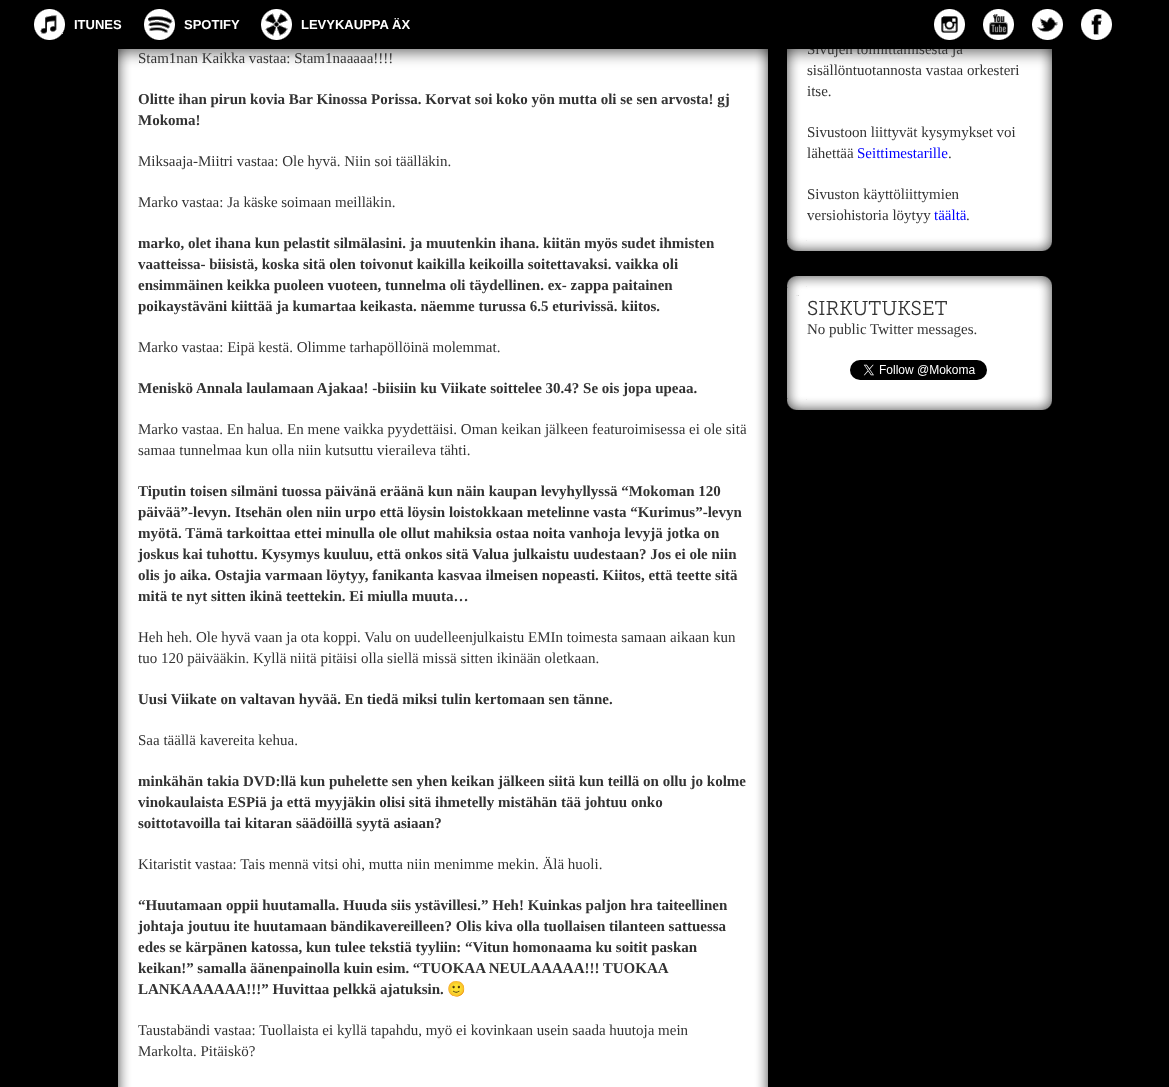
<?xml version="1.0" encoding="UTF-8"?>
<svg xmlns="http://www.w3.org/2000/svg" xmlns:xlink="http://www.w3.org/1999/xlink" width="1169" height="1087">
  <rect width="100%" height="100%" fill="#000000" />
  <image x="118" y="49" width="650" height="1038" xlink:href="image8.png" />
  <image x="787" y="49" width="265" height="182" xlink:href="image9.png" />
  <rect y="3" width="1169" height="49" fill="#000000" fill-opacity="0.6" filter="blur(7.5px)" />
  <image x="34" y="9" width="31" height="31" xlink:href="image1.png" />
  <image x="144" y="9" width="31" height="31" xlink:href="image2.png" />
  <image x="261" y="9" width="31" height="31" xlink:href="image3.png" />
  <image x="934" y="9" width="31" height="31" xlink:href="image4.png" />
  <image x="983" y="9" width="31" height="31" xlink:href="image5.png" />
  <image x="1032" y="9" width="31" height="31" xlink:href="image6.png" />
  <image x="1081" y="9" width="31" height="31" xlink:href="image7.png" />
  <image x="787" y="231" width="265" height="20" xlink:href="image10.png" />
  <image x="787" y="276" width="265" height="20" xlink:href="image11.png" />
  <image x="787" y="296" width="265" height="94" xlink:href="image12.png" />
  <image x="850" y="360" width="137" height="20" xlink:href="image13.png" />
  <image x="787" y="390" width="265" height="20" xlink:href="image10.png" />
  <text x="74" y="29" style="font-family: Liberation Sans; font-size: 13px; font-weight: bold; fill: #ffffff">ITUNES</text>
  <text x="184" y="29" style="font-family: Liberation Sans; font-size: 13px; font-weight: bold; fill: #ffffff">SPOTIFY</text>
  <text x="301" y="29" style="font-family: Liberation Sans; font-size: 13px; font-weight: bold; fill: #ffffff">LEVYKAUPPA ÄX</text>
  <text x="138" y="63" style="font-family: Liberation Serif; font-size: 15px; fill: #333333">Stam1nan Kaikka vastaa: Stam1naaaaa!!!!</text>
  <text x="138" y="104" style="font-family: Liberation Serif; font-size: 15px; font-weight: bold; fill: #333333">Olitte ihan pirun kovia Bar Kinossa Porissa. Korvat soi koko yön mutta oli se sen arvosta! gj</text>
  <text x="138" y="125" style="font-family: Liberation Serif; font-size: 15px; font-weight: bold; fill: #333333">Mokoma!</text>
  <text x="138" y="166" style="font-family: Liberation Serif; font-size: 15px; fill: #333333">Miksaaja-Miitri vastaa: Ole hyvä. Niin soi täälläkin.</text>
  <text x="138" y="207" style="font-family: Liberation Serif; font-size: 15px; fill: #333333">Marko vastaa: Ja käske soimaan meilläkin.</text>
  <text x="138" y="248" style="font-family: Liberation Serif; font-size: 15px; font-weight: bold; fill: #333333">marko, olet ihana kun pelastit silmälasini. ja muutenkin ihana. kiitän myös sudet ihmisten</text>
  <text x="138" y="269" style="font-family: Liberation Serif; font-size: 15px; font-weight: bold; fill: #333333">vaatteissa- biisistä, koska sitä olen toivonut kaikilla keikoilla soitettavaksi. vaikka oli</text>
  <text x="138" y="290" style="font-family: Liberation Serif; font-size: 15px; font-weight: bold; fill: #333333">ensimmäinen keikka puoleen vuoteen, tunnelma oli täydellinen. ex- zappa paitainen</text>
  <text x="138" y="311" style="font-family: Liberation Serif; font-size: 15px; font-weight: bold; fill: #333333">poikaystäväni kiittää ja kumartaa keikasta. näemme turussa 6.5 eturivissä. kiitos.</text>
  <text x="138" y="352" style="font-family: Liberation Serif; font-size: 15px; fill: #333333">Marko vastaa: Eipä kestä. Olimme tarhapöllöinä molemmat.</text>
  <text x="138" y="393" style="font-family: Liberation Serif; font-size: 15px; font-weight: bold; fill: #333333">Meniskö Annala laulamaan Ajakaa! -biisiin ku Viikate soittelee 30.4? Se ois jopa upeaa.</text>
  <text x="138" y="434" style="font-family: Liberation Serif; font-size: 15px; fill: #333333">Marko vastaa. En halua. En mene vaikka pyydettäisi. Oman keikan jälkeen featuroimisessa ei ole sitä</text>
  <text x="138" y="455" style="font-family: Liberation Serif; font-size: 15px; fill: #333333">samaa tunnelmaa kun olla niin kutsuttu vieraileva tähti.</text>
  <text x="138" y="496" style="font-family: Liberation Serif; font-size: 15px; font-weight: bold; fill: #333333">Tiputin toisen silmäni tuossa päivänä eräänä kun näin kaupan levyhyllyssä “Mokoman 120</text>
  <text x="138" y="517" style="font-family: Liberation Serif; font-size: 15px; font-weight: bold; fill: #333333">päivää”-levyn. Itsehän olen niin urpo että löysin loistokkaan metelinne vasta “Kurimus”-levyn</text>
  <text x="138" y="538" style="font-family: Liberation Serif; font-size: 15px; font-weight: bold; fill: #333333">myötä. Tämä tarkoittaa ettei minulla ole ollut mahiksia ostaa noita vanhoja levyjä jotka on</text>
  <text x="138" y="559" style="font-family: Liberation Serif; font-size: 15px; font-weight: bold; fill: #333333">joskus kai tuhottu. Kysymys kuuluu, että onkos sitä Valua julkaistu uudestaan? Jos ei ole niin</text>
  <text x="138" y="580" style="font-family: Liberation Serif; font-size: 15px; font-weight: bold; fill: #333333">olis jo aika. Ostajia varmaan löytyy, fanikanta kasvaa ilmeisen nopeasti. Kiitos, että teette sitä</text>
  <text x="138" y="601" style="font-family: Liberation Serif; font-size: 15px; font-weight: bold; fill: #333333">mitä te nyt sitten ikinä teettekin. Ei miulla muuta…</text>
  <text x="138" y="642" style="font-family: Liberation Serif; font-size: 15px; fill: #333333">Heh heh. Ole hyvä vaan ja ota koppi. Valu on uudelleenjulkaistu EMIn toimesta samaan aikaan kun</text>
  <text x="138" y="663" style="font-family: Liberation Serif; font-size: 15px; fill: #333333">tuo 120 päivääkin. Kyllä niitä pitäisi olla siellä missä sitten ikinään oletkaan.</text>
  <text x="138" y="704" style="font-family: Liberation Serif; font-size: 15px; font-weight: bold; fill: #333333">Uusi Viikate on valtavan hyvää. En tiedä miksi tulin kertomaan sen tänne.</text>
  <text x="138" y="745" style="font-family: Liberation Serif; font-size: 15px; fill: #333333">Saa täällä kavereita kehua.</text>
  <text x="138" y="786" style="font-family: Liberation Serif; font-size: 15px; font-weight: bold; fill: #333333">minkähän takia DVD:llä kun puhelette sen yhen keikan jälkeen siitä kun teillä on ollu jo kolme</text>
  <text x="138" y="807" style="font-family: Liberation Serif; font-size: 15px; font-weight: bold; fill: #333333">vinokaulaista ESPiä ja että myyjäkin olisi sitä ihmetelly mistähän tää johtuu onko</text>
  <text x="138" y="828" style="font-family: Liberation Serif; font-size: 15px; font-weight: bold; fill: #333333">soittotavoilla tai kitaran säädöillä syytä asiaan?</text>
  <text x="138" y="869" style="font-family: Liberation Serif; font-size: 15px; fill: #333333">Kitaristit vastaa: Tais mennä vitsi ohi, mutta niin menimme mekin. Älä huoli.</text>
  <text x="138" y="910" style="font-family: Liberation Serif; font-size: 15px; font-weight: bold; fill: #333333">“Huutamaan oppii huutamalla. Huuda siis ystävillesi.” Heh! Kuinkas paljon hra taiteellinen</text>
  <text x="138" y="931" style="font-family: Liberation Serif; font-size: 15px; font-weight: bold; fill: #333333">johtaja joutuu ite huutamaan bändikavereilleen? Olis kiva olla tuollaisen tilanteen sattuessa</text>
  <text x="138" y="952" style="font-family: Liberation Serif; font-size: 15px; font-weight: bold; fill: #333333">edes se kärpänen katossa, kun tulee tekstiä tyyliin: “Vitun homonaama ku soitit paskan</text>
  <text x="138" y="973" word-spacing="-0.25" style="font-family: Liberation Serif; font-size: 15px; font-weight: bold; fill: #333333">keikan!” samalla äänenpainolla kuin esim. “TUOKAA NEULAAAAA!!! TUOKAA</text>
  <text x="138" y="994" style="font-family: Liberation Serif; font-size: 15px; font-weight: bold; fill: #333333">LANKAAAAAA!!!” Huvittaa pelkkä ajatuksin.</text>
  <text x="447" y="994" style="font-family: Noto Color Emoji; font-size: 15px; font-weight: bold; fill: #333333">🙂</text>
  <text x="138" y="1035" style="font-family: Liberation Serif; font-size: 15px; fill: #333333">Taustabändi vastaa: Tuollaista ei kyllä tapahdu, myö ei kovinkaan usein saada huutoja mein</text>
  <text x="138" y="1056" style="font-family: Liberation Serif; font-size: 15px; fill: #333333">Markolta. Pitäiskö?</text>
  <text x="807" y="54" style="font-family: Liberation Serif; font-size: 15px; fill: #333333">Sivujen toimittamisesta ja</text>
  <rect x="807" y="44" width="155" height="5" fill="#000000" />
  <text x="807" y="75" style="font-family: Liberation Serif; font-size: 15px; fill: #333333">sisällöntuotannosta vastaa orkesteri</text>
  <text x="807" y="96" style="font-family: Liberation Serif; font-size: 15px; fill: #333333">itse.</text>
  <text x="807" y="137" style="font-family: Liberation Serif; font-size: 15px; fill: #333333">Sivustoon liittyvät kysymykset voi</text>
  <text x="807" y="158" style="font-family: Liberation Serif; font-size: 15px; fill: #333333">lähettää</text>
  <text x="857" y="158" style="font-family: Liberation Serif; font-size: 15px; fill: #0000ff">Seittimestarille</text>
  <text x="948" y="158" style="font-family: Liberation Serif; font-size: 15px; fill: #333333">.</text>
  <text x="807" y="199" style="font-family: Liberation Serif; font-size: 15px; fill: #333333">Sivuston käyttöliittymien</text>
  <text x="807" y="220" style="font-family: Liberation Serif; font-size: 15px; fill: #333333">versiohistoria löytyy</text>
  <text x="934" y="220" style="font-family: Liberation Serif; font-size: 15px; fill: #0000ff">täältä</text>
  <text x="966" y="220" style="font-family: Liberation Serif; font-size: 15px; fill: #333333">.</text>
  <text x="807" y="315" style="font-family: 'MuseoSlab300'; font-size: 20px; fill: #333333">SIRKUTUKSET</text>
  <text x="807" y="334" style="font-family: Liberation Serif; font-size: 15px; fill: #333333">No public Twitter messages.</text>
</svg>
